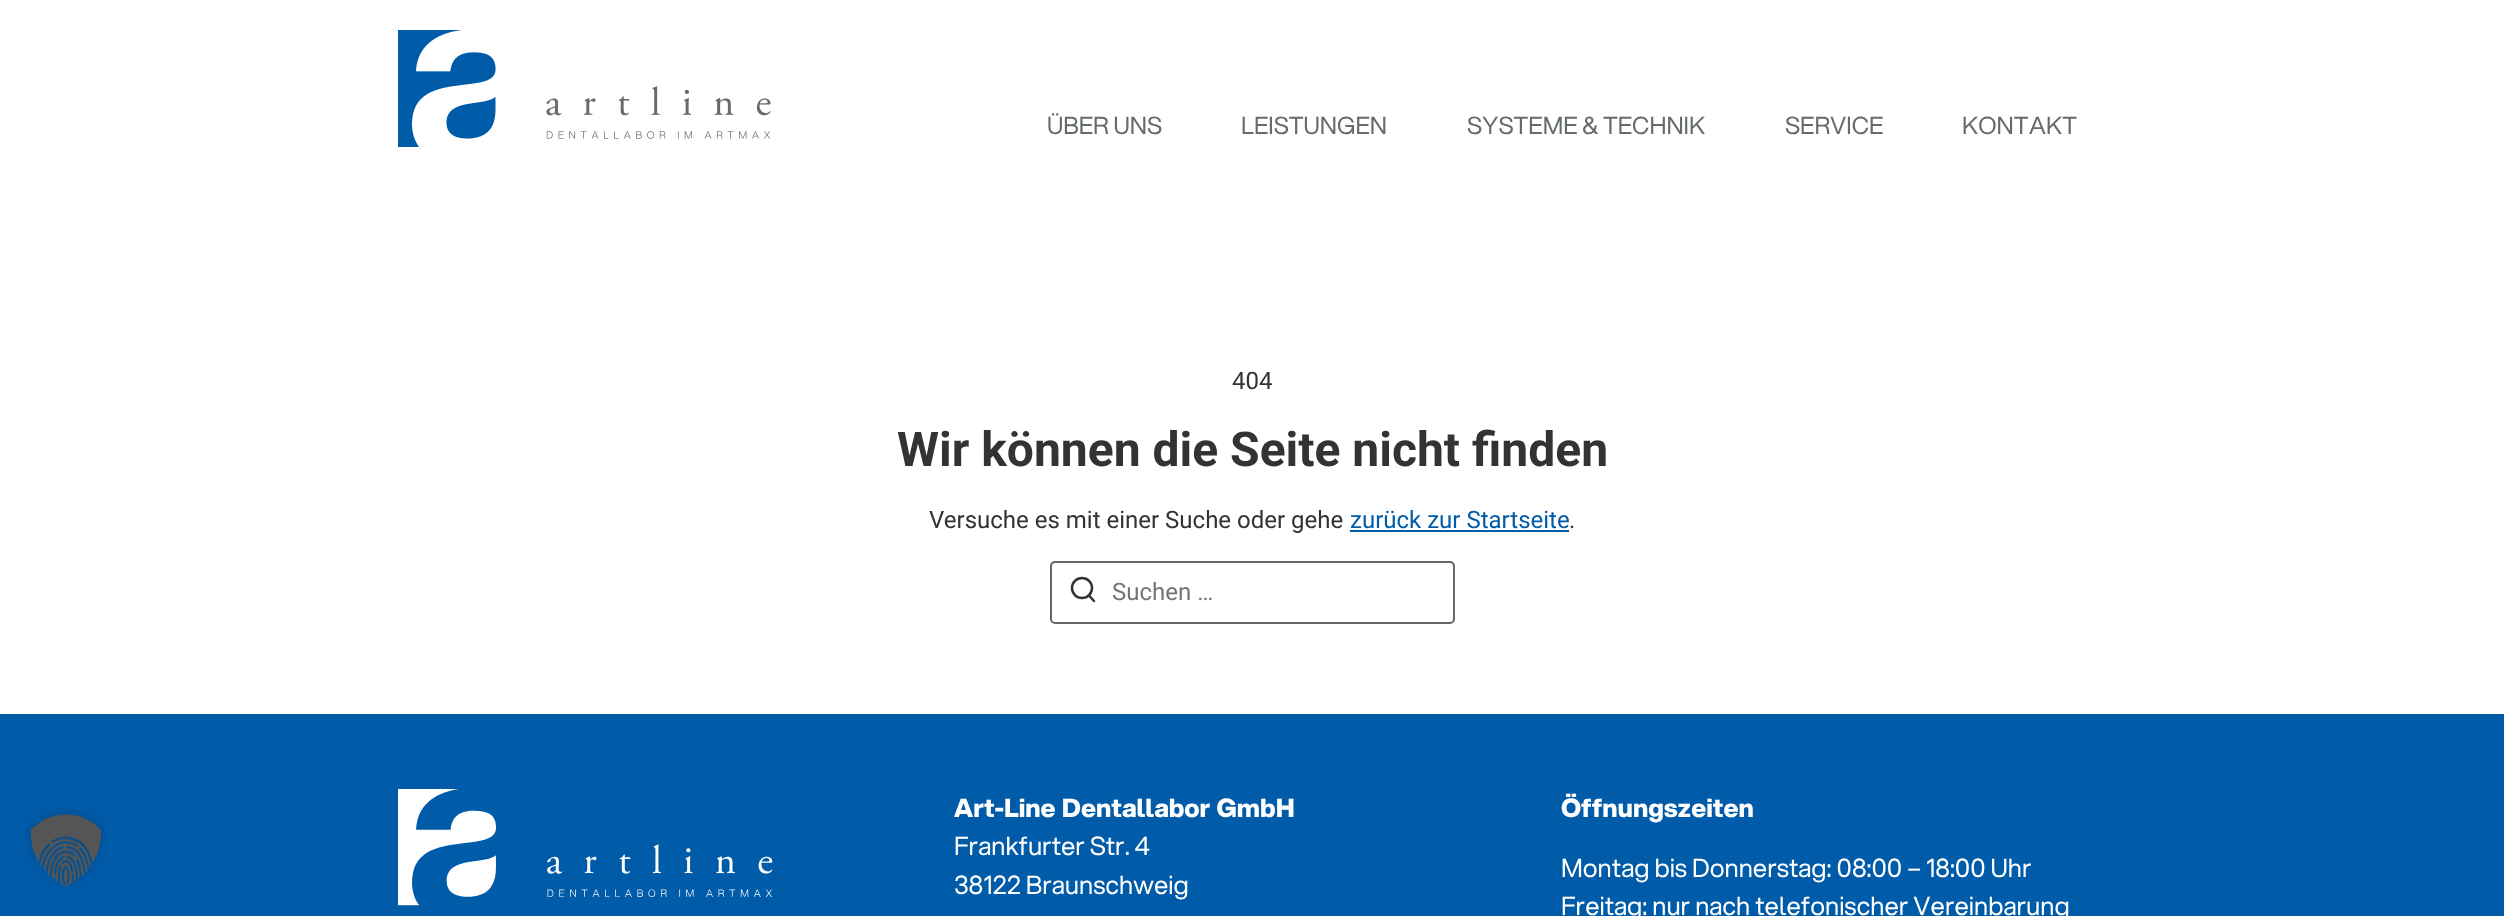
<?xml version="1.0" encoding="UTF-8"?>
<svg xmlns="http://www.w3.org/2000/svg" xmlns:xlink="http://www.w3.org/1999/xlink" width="2504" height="916">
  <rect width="100%" height="100%" fill="#ffffff" />
  <image x="398" y="30" width="373" height="117" xlink:href="image1.png" />
  <rect x="1350" y="530" width="219" height="2" fill="#005ba9" />
  <rect x="1051" y="562" width="403" height="61" rx="4" fill="none" stroke="#666666" stroke-width="2" />
  <circle cx="1082" cy="588" r="10" fill="none" stroke="#333333" stroke-width="2.5" />
  <path d="M 1094 601 l -5 -5.5" fill="none" stroke="#333333" stroke-width="2.5" stroke-linecap="round" stroke-linejoin="round" />
  <rect y="714" width="2504" height="202" fill="#005ba9" />
  <image x="25" y="808" width="82" height="81" xlink:href="image2.png" />
  <image x="398" y="789" width="375" height="117" xlink:href="image3.png" />
  <text x="1047" y="134" style="font-family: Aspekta; font-size: 24px; fill: #656b6d">ÜBER UNS</text>
  <text x="1241" y="134" style="font-family: Aspekta; font-size: 24px; fill: #656b6d">LEISTUNGEN</text>
  <text x="1467" y="134" style="font-family: Aspekta; font-size: 24px; fill: #656b6d">SYSTEME &amp; TECHNIK</text>
  <text x="1785" y="134" style="font-family: Aspekta; font-size: 24px; fill: #656b6d">SERVICE</text>
  <text x="1962" y="134" style="font-family: Aspekta; font-size: 24px; fill: #656b6d">KONTAKT</text>
  <text x="1232" y="389" style="font-family: Roboto; font-size: 24px; fill: #333333">404</text>
  <text x="897" y="466" style="font-family: Roboto; font-size: 48px; font-weight: bold; fill: #333333">Wir können die Seite nicht finden</text>
  <text x="929" y="528" style="font-family: Roboto; font-size: 24px; fill: #333333">Versuche es mit einer Suche oder gehe</text>
  <text x="1350" y="528" style="font-family: Roboto; font-size: 24px; fill: #005ba9">zurück zur Startseite</text>
  <text x="1569" y="528" style="font-family: Roboto; font-size: 24px; fill: #333333">.</text>
  <text x="1112" y="600" style="font-family: Roboto; font-size: 24px; fill: #757575">Suchen …</text>
  <text x="954" y="817" style="font-family: Aspekta; font-size: 25.5px; font-weight: 800; fill: #ffffff">Art-Line Dentallabor GmbH</text>
  <text x="954" y="855" style="font-family: Aspekta; font-size: 25.5px; fill: #ffffff">Frankfurter Str. 4</text>
  <text x="954" y="894" style="font-family: Aspekta; font-size: 25.5px; fill: #ffffff">38122 Braunschweig</text>
  <text x="1561" y="817" style="font-family: Aspekta; font-size: 25.5px; font-weight: 800; fill: #ffffff">Öffnungszeiten</text>
  <text x="1561" y="877" style="font-family: Aspekta; font-size: 25.5px; fill: #ffffff">Montag bis Donnerstag: 08:00 – 18:00 Uhr</text>
  <text x="1561" y="915" style="font-family: Aspekta; font-size: 25.5px; fill: #ffffff">Freitag: nur nach telefonischer Vereinbarung</text>
</svg>
